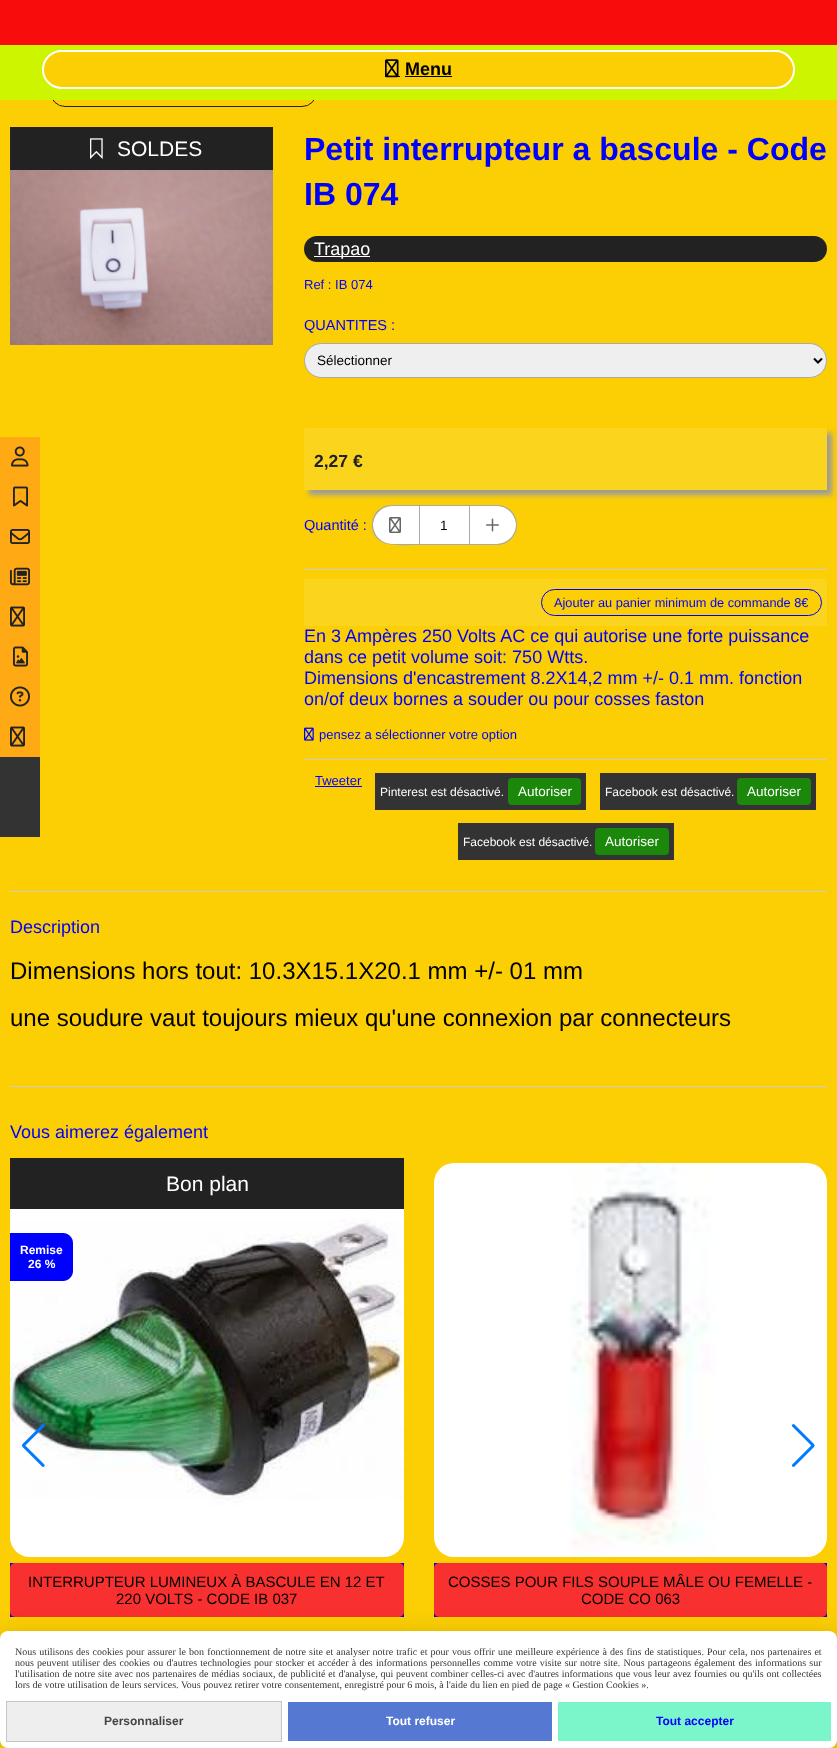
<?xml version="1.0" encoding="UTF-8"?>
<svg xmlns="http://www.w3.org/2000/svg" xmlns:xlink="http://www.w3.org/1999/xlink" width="837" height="1748">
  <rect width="100%" height="100%" fill="#fbcf04" />
  <rect x="50.5" y="77.5" width="266" height="29" rx="14.5" fill="none" stroke="#222222" />
  <rect y="45" width="837" height="55" fill="#cef500" />
  <rect width="837" height="45" fill="#f80c0c" />
  <rect x="43" y="51" width="751" height="37" rx="18.5" fill="#fbcf04" stroke="#ffffff" stroke-width="2" />
  <rect x="385" y="76" width="15" height="1" fill="#000000" />
  <image x="385" y="59" width="14" height="19" xlink:href="image1.png" />
  <rect x="405" y="76" width="47" height="1" fill="#000000" />
  <rect x="10" y="127" width="263" height="43" fill="#222222" />
  <image x="90" y="138" width="13" height="21" xlink:href="image2.png" />
  <image x="10" y="170" width="263" height="175" xlink:href="image3.png" />
  <rect x="304" y="236" width="523" height="26" rx="13" fill="#222222" />
  <rect x="314" y="256" width="56" height="1" fill="#ffffff" />
  <rect x="304.5" y="343.5" width="522" height="34" rx="17" fill="#efefef" stroke="#a9a9a9" />
  <path d="M 814 358.5 l 4 4 l 4 -4" fill="none" stroke="#000000" stroke-width="2" />
  <rect x="309" y="433" width="523" height="62" fill="#9b9b9b" filter="blur(2.5px)" />
  <rect x="304" y="428" width="523" height="62" fill="#fbd41d" />
  <path d="M 392 506 h 27 v 38 h -27 c -10.5 0 -19 -8.5 -19 -19 c 0 -10.5 8.5 -19 19 -19 z" fill="#ffffff" />
  <path d="M 392 505 h 27 v 40 c -9 0 -28 1 -35 -2 c -20 -8 -14 -38 8 -38 z m 0 1 h 27 v 38 h -27 c -10 0 -19 -9 -19 -19 c 0 -10 9 -19 19 -19 z" fill="#a9a9a9" fill-rule="evenodd" />
  <image x="389" y="517" width="12" height="16" xlink:href="image4.png" />
  <rect x="419.5" y="505.5" width="50" height="39" fill="#ffffff" stroke="#a9a9a9" />
  <path d="M 470 506 h 27 c 10.5 0 19 8.5 19 19 c 0 10.5 -8.5 19 -19 19 h -27 z" fill="#ffffff" />
  <path d="M 470 505 h 27 c 11 0 20 9 20 20 c 0 11 -9 20 -20 20 h -27 z m 0 1 h 27 c 10 0 19 9 19 19 c 0 10 -9 19 -19 19 h -27 z" fill="#a9a9a9" fill-rule="evenodd" />
  <image x="486" y="518" width="13" height="14" xlink:href="image5.png" />
  <rect x="304" y="579" width="523" height="47" fill="#fbd41d" />
  <rect x="541.5" y="589.5" width="280" height="26" rx="13" fill="#fbcf04" stroke="#0000ff" />
  <rect x="304" y="569" width="523" height="1" fill="#cccccc" />
  <image x="304" y="727" width="10" height="14" xlink:href="image6.png" />
  <rect x="304" y="759" width="523" height="1" fill="#cccccc" />
  <rect x="315" y="786" width="47" height="1" fill="#0000ff" />
  <rect x="375" y="773" width="211" height="37" fill="#333333" />
  <rect x="508" y="778" width="73" height="27" rx="4" fill="#1b870b" />
  <rect x="600" y="773" width="216" height="37" fill="#333333" />
  <rect x="737" y="778" width="74" height="27" rx="4" fill="#1b870b" />
  <rect x="458" y="823" width="216" height="37" fill="#333333" />
  <rect x="595" y="828" width="74" height="27" rx="4" fill="#1b870b" />
  <rect x="10" y="891" width="817" height="1" fill="#cccccc" />
  <rect x="10" y="1086" width="817" height="1" fill="#cccccc" />
  <rect x="10" y="1158" width="394" height="51" fill="#222222" />
  <image x="10" y="1209" width="394" height="348" xlink:href="image7.png" />
  <path d="M 10 1233 h 53 c 5.5 0 10 4.5 10 10 v 28 c 0 5.5 -4.5 10 -10 10 h -53 z" fill="#0000ff" />
  <rect x="10" y="1563" width="394" height="54" fill="#0000ff" />
  <rect x="10" y="1563" width="394" height="54" rx="5" fill="#f93030" />
  <image x="434" y="1163" width="393" height="394" xlink:href="image8.png" />
  <rect x="434" y="1563" width="393" height="54" fill="#0000ff" />
  <rect x="434" y="1563" width="393" height="54" rx="5" fill="#f93030" />
  <image x="22" y="1424" width="23" height="43" xlink:href="image9.png" />
  <image x="791" y="1424" width="24" height="43" xlink:href="image10.png" />
  <rect y="437" width="40" height="320" fill="#ffa914" />
  <image x="11" y="446" width="18" height="21" xlink:href="image11.png" />
  <image x="13" y="486" width="15" height="21" xlink:href="image12.png" />
  <image x="10" y="529" width="20" height="15" xlink:href="image13.png" />
  <image x="10" y="567" width="20" height="19" xlink:href="image14.png" />
  <image x="10" y="606" width="15" height="21" xlink:href="image15.png" />
  <image x="13" y="646" width="15" height="21" xlink:href="image16.png" />
  <image x="10" y="686" width="20" height="21" xlink:href="image17.png" />
  <image x="10" y="726" width="15" height="21" xlink:href="image15.png" />
  <rect y="757" width="40" height="80" fill="#333333" />
  <rect y="1633" width="837" height="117" rx="8" fill="#000000" fill-opacity="0.05" filter="blur(3px)" />
  <rect y="1635" width="837" height="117" rx="8" fill="#000000" fill-opacity="0.15" filter="blur(12px)" />
  <rect y="1631" width="837" height="117" rx="8" fill="#ffffff" />
  <rect x="6.5" y="1701.5" width="275" height="40" fill="#eeeeee" stroke="#c5c5c5" />
  <rect x="288" y="1702" width="264" height="39" fill="#5579d2" />
  <rect x="558" y="1702" width="273" height="39" fill="#7bf6ca" />
  <text x="405" y="75" style="font-family: Liberation Sans; font-size: 18px; font-weight: bold; fill: #000000">Menu</text>
  <text x="117" y="156" style="font-family: Liberation Sans; font-size: 21px; fill: #ffffff">SOLDES</text>
  <text x="304" y="160" style="font-family: Liberation Sans; font-size: 32px; font-weight: bold; fill: #0000ff">Petit interrupteur a bascule - Code</text>
  <text x="304" y="205" style="font-family: Liberation Sans; font-size: 32px; font-weight: bold; fill: #0000ff">IB 074</text>
  <text x="314" y="255" style="font-family: Liberation Sans; font-size: 18px; fill: #ffffff">Trapao</text>
  <text x="304" y="289" style="font-family: Liberation Sans; font-size: 13px; fill: #0000ff">Ref : IB 074</text>
  <text x="304" y="330" style="font-family: Liberation Sans; font-size: 14.5px; fill: #0000ff">QUANTITES :</text>
  <text x="317" y="365" style="font-family: Liberation Sans; font-size: 13.5px; fill: #000000">Sélectionner</text>
  <text x="314" y="467" style="font-family: Liberation Sans; font-size: 17.5px; font-weight: bold; fill: #222222">2,27 €</text>
  <text x="304" y="530" style="font-family: Liberation Sans; font-size: 14.5px; fill: #0000ff">Quantité :</text>
  <text x="440" y="530" style="font-family: Liberation Sans; font-size: 13.5px; fill: #000000">1</text>
  <text x="554" y="607" style="font-family: Liberation Sans; font-size: 12.75px; fill: #0000ff">Ajouter au panier minimum de commande 8€</text>
  <text x="304" y="642" style="font-family: Liberation Sans; font-size: 18px; fill: #0000ff">En 3 Ampères 250 Volts AC ce qui autorise une forte puissance</text>
  <text x="304" y="663" style="font-family: Liberation Sans; font-size: 18px; fill: #0000ff">dans ce petit volume soit: 750 Wtts.</text>
  <text x="304" y="684" style="font-family: Liberation Sans; font-size: 18px; fill: #0000ff">Dimensions d'encastrement 8.2X14,2 mm +/- 0.1 mm. fonction</text>
  <text x="304" y="705" style="font-family: Liberation Sans; font-size: 18px; fill: #0000ff">on/of deux bornes a souder ou pour cosses faston</text>
  <text x="319" y="739" style="font-family: Liberation Sans; font-size: 13px; fill: #0000ff">pensez a sélectionner votre option</text>
  <text x="315" y="785" style="font-family: Liberation Sans; font-size: 13px; fill: #0000ff">Tweeter</text>
  <text x="380" y="796" style="font-family: Liberation Sans; font-size: 12px; fill: #ffffff">Pinterest est désactivé.</text>
  <text x="518" y="796" style="font-family: Liberation Sans; font-size: 13.5px; fill: #ffffff">Autoriser</text>
  <text x="605" y="796" style="font-family: Liberation Sans; font-size: 12px; fill: #ffffff">Facebook est désactivé.</text>
  <text x="747" y="796" style="font-family: Liberation Sans; font-size: 13.5px; fill: #ffffff">Autoriser</text>
  <text x="463" y="846" style="font-family: Liberation Sans; font-size: 12px; fill: #ffffff">Facebook est désactivé.</text>
  <text x="605" y="846" style="font-family: Liberation Sans; font-size: 13.5px; fill: #ffffff">Autoriser</text>
  <text x="10" y="933" style="font-family: Liberation Sans; font-size: 18px; fill: #0000ff">Description</text>
  <text x="10" y="979" style="font-family: Liberation Sans; font-size: 24px; fill: #000000">Dimensions hors tout: 10.3X15.1X20.1 mm +/- 01 mm</text>
  <text x="10" y="1026" style="font-family: Liberation Sans; font-size: 24px; fill: #000000">une soudure vaut toujours mieux qu'une connexion par connecteurs</text>
  <text x="10" y="1138" style="font-family: Liberation Sans; font-size: 18px; fill: #0000ff">Vous aimerez également</text>
  <text x="166" y="1191" style="font-family: Liberation Sans; font-size: 21px; fill: #ffffff">Bon plan</text>
  <text x="20" y="1254" style="font-family: Liberation Sans; font-size: 12px; font-weight: bold; fill: #ffffff">Remise</text>
  <text x="28" y="1268" style="font-family: Liberation Sans; font-size: 12px; font-weight: bold; fill: #ffffff">26 %</text>
  <text x="28" y="1587" style="font-family: Liberation Sans; font-size: 15px; fill: #000000">INTERRUPTEUR LUMINEUX À BASCULE EN 12 ET</text>
  <text x="116" y="1604" style="font-family: Liberation Sans; font-size: 15px; fill: #000000">220 VOLTS - CODE IB 037</text>
  <text x="448" y="1587" style="font-family: Liberation Sans; font-size: 15px; fill: #000000">COSSES POUR FILS SOUPLE MÂLE OU FEMELLE -</text>
  <text x="581" y="1604" style="font-family: Liberation Sans; font-size: 15px; fill: #000000">CODE CO 063</text>
  <text x="15" y="1655" word-spacing="0.55" style="font-family: Liberation Serif; font-size: 10px; fill: #333333">Nous utilisons des cookies pour assurer le bon fonctionnement de notre site et analyser notre trafic et pour vous offrir une meilleure expérience à des fins de statistiques. Pour cela, nos partenaires et</text>
  <text x="15" y="1666" word-spacing="0.7" style="font-family: Liberation Serif; font-size: 10px; fill: #333333">nous peuvent utiliser des cookies ou d'autres technologies pour stocker et accéder à des informations personnelles comme votre visite sur notre site. Nous partageons également des informations sur</text>
  <text x="15" y="1677" word-spacing="0.3" style="font-family: Liberation Serif; font-size: 10px; fill: #333333">l'utilisation de notre site avec nos partenaires de médias sociaux, de publicité et d'analyse, qui peuvent combiner celles-ci avec d'autres informations que vous leur avez fournies ou qu'ils ont collectées</text>
  <text x="15" y="1688" style="font-family: Liberation Serif; font-size: 10px; fill: #333333">lors de votre utilisation de leurs services. Vous pouvez retirer votre consentement, enregistré pour 6 mois, à l'aide du lien en pied de page « Gestion Cookies ».</text>
  <text x="104" y="1725" style="font-family: Liberation Sans; font-size: 12px; font-weight: bold; fill: #444444">Personnaliser</text>
  <text x="386" y="1725" style="font-family: Liberation Sans; font-size: 12px; font-weight: bold; fill: #ffffff">Tout refuser</text>
  <text x="656" y="1725" style="font-family: Liberation Sans; font-size: 12px; font-weight: bold; fill: #0000ff">Tout accepter</text>
</svg>
